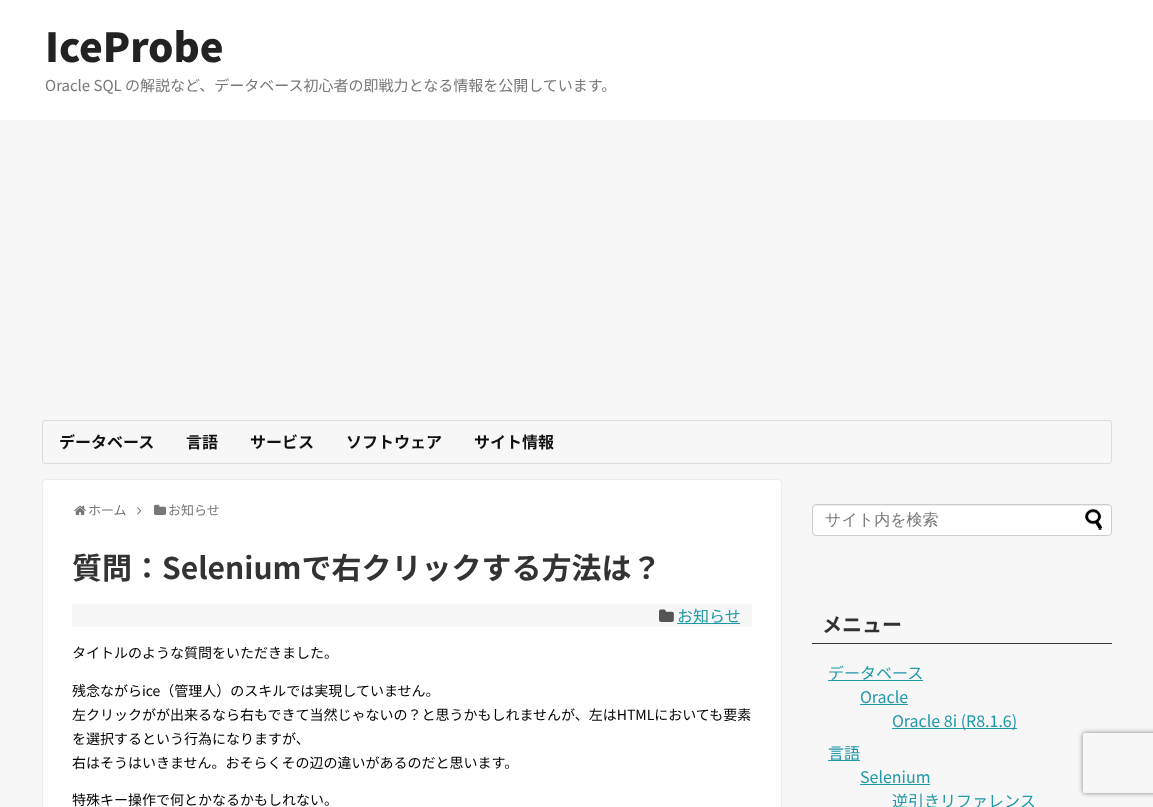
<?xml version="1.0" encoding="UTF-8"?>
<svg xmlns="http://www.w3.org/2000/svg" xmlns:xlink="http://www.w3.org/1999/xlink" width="1153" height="807">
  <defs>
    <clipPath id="clip1"><path d="M 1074 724 h 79 v 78 h -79 z m 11 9 h 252 c 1 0 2 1 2 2 v 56 c 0 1 -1 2 -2 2 h -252 c -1 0 -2 -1 -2 -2 v -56 c 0 -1 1 -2 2 -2 z" clip-rule="evenodd" /></clipPath>
  </defs>
  <rect width="100%" height="100%" fill="#f7f7f7" />
  <rect width="1153" height="120" fill="#ffffff" />
  <rect x="42.5" y="420.5" width="1069" height="43" rx="2.5" fill="none" stroke="#dddddd" />
  <rect x="42.5" y="479.5" width="739" height="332" rx="3.5" fill="#ffffff" stroke="#ececec" />
  <image x="74" y="505" width="12" height="10" xlink:href="image1.png" />
  <image x="137" y="507" width="5" height="8" xlink:href="image2.png" />
  <image x="154" y="504" width="13" height="11" xlink:href="image3.png" />
  <rect x="72" y="604" width="680" height="23" fill="#f7f7f7" />
  <image x="659" y="609" width="15" height="13" xlink:href="image4.png" />
  <rect x="677" y="623" width="63" height="1" fill="#2098a8" />
  <rect x="812" y="504" width="300" height="32" rx="4" fill="#ffffff" />
  <path d="M 816 506 h 292 c 2 0 3 1 3 3 l -1 -3 l -1 -1 h -293 c -2 0 -3 2 -3 4 c 0 -2 1 -3 3 -3 z" fill="#ececec" />
  <rect x="812.5" y="504.5" width="299" height="31" rx="3.5" fill="none" stroke="#cccccc" />
  <image x="1085" y="509" width="17" height="21" xlink:href="image5.png" />
  <rect x="812" y="643" width="300" height="1" fill="#333333" />
  <rect x="828" y="680" width="95" height="1" fill="#2098a8" />
  <rect x="860" y="704" width="48" height="1" fill="#2098a8" />
  <rect x="892" y="728" width="125" height="1" fill="#2098a8" />
  <rect x="828" y="760" width="32" height="1" fill="#2098a8" />
  <rect x="860" y="784" width="70" height="1" fill="#2098a8" />
  <g clip-path="url(#clip1)">
    <rect x="1083" y="733" width="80" height="60" rx="2" fill="#808080" filter="blur(2.5px)" />
  </g>
  <text x="45" y="62" style="font-family: Noto Sans JP; font-size: 40px; font-weight: 900; fill: #222222">IceProbe</text>
  <text x="45" y="91" style="font-family: Noto Sans JP; font-size: 15px; fill: #777777">Oracle SQL の解説など、データベース初心者の即戦力となる情報を公開しています。</text>
  <text x="59" y="448" style="font-family: Noto Sans JP; font-size: 16px; font-weight: bold; fill: #111111">データベース</text>
  <text x="186" y="448" style="font-family: Noto Sans JP; font-size: 16px; font-weight: bold; fill: #111111">言語</text>
  <text x="250" y="448" style="font-family: Noto Sans JP; font-size: 16px; font-weight: bold; fill: #111111">サービス</text>
  <text x="346" y="448" style="font-family: Noto Sans JP; font-size: 16px; font-weight: bold; fill: #111111">ソフトウェア</text>
  <text x="474" y="448" style="font-family: Noto Sans JP; font-size: 16px; font-weight: bold; fill: #111111">サイト情報</text>
  <text x="88" y="515" style="font-family: Noto Sans JP; font-size: 13px; fill: #777777">ホーム</text>
  <text x="168" y="515" style="font-family: Noto Sans JP; font-size: 13px; fill: #777777">お知らせ</text>
  <text x="72" y="579" style="font-family: Noto Sans JP; font-size: 30px; font-weight: bold; fill: #333333">質問：Seleniumで右クリックする方法は？</text>
  <text x="677" y="622" style="font-family: Noto Sans JP; font-size: 16px; fill: #2098a8">お知らせ</text>
  <text x="72" y="658" style="font-family: Noto Sans JP; font-size: 14px; fill: #000000">タイトルのような質問をいただきました。</text>
  <text x="72" y="696" style="font-family: Noto Sans JP; font-size: 14px; fill: #000000">残念ながらice（管理人）のスキルでは実現していません。</text>
  <text x="72" y="720" style="font-family: Noto Sans JP; font-size: 14px; fill: #000000">左クリックがが出来るなら右もできて当然じゃないの？と思うかもしれませんが、左はHTMLにおいても要素</text>
  <text x="72" y="744" style="font-family: Noto Sans JP; font-size: 14px; fill: #000000">を選択するという行為になりますが、</text>
  <text x="72" y="768" style="font-family: Noto Sans JP; font-size: 14px; fill: #000000">右はそうはいきません。おそらくその辺の違いがあるのだと思います。</text>
  <text x="72" y="805" style="font-family: Noto Sans JP; font-size: 14px; fill: #000000">特殊キー操作で何とかなるかもしれない。</text>
  <text x="825" y="525" style="font-family: WenQuanYi Zen Hei; font-size: 16px; font-weight: 500; fill: #777777">サイト内を検索</text>
  <text x="822" y="632" style="font-family: Noto Sans JP; font-size: 20px; font-weight: bold; fill: #333333">メニュー</text>
  <text x="828" y="679" style="font-family: Noto Sans JP; font-size: 16px; fill: #2098a8">データベース</text>
  <text x="860" y="703" style="font-family: Noto Sans JP; font-size: 16px; fill: #2098a8">Oracle</text>
  <text x="892" y="727" style="font-family: Noto Sans JP; font-size: 16px; fill: #2098a8">Oracle 8i (R8.1.6)</text>
  <text x="828" y="759" style="font-family: Noto Sans JP; font-size: 16px; fill: #2098a8">言語</text>
  <text x="860" y="783" style="font-family: Noto Sans JP; font-size: 16px; fill: #2098a8">Selenium</text>
  <text x="892" y="807" style="font-family: Noto Sans JP; font-size: 16px; fill: #2098a8">逆引きリファレンス</text>
</svg>
